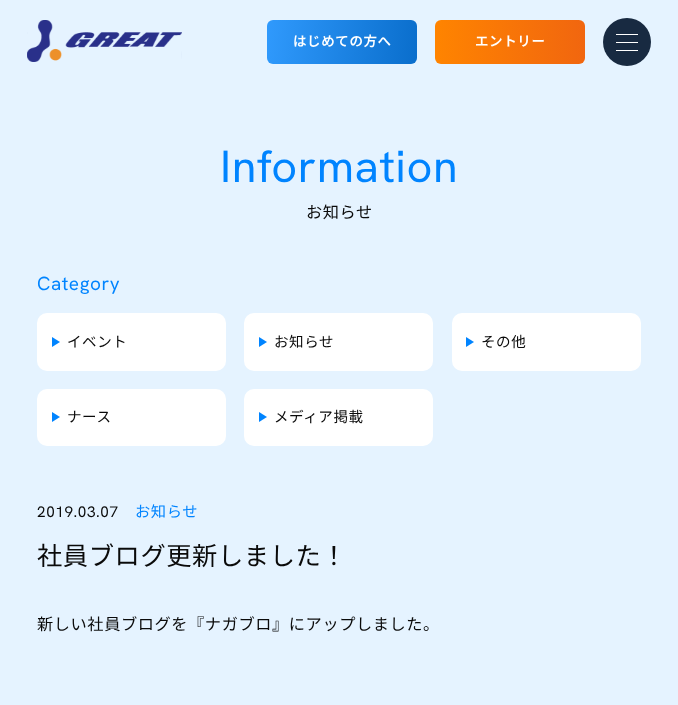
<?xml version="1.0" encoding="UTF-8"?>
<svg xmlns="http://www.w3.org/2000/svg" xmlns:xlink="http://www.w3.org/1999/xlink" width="678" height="705">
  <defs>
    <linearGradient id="g1" gradientUnits="userSpaceOnUse" x1="264" y1="34" x2="418" y2="50"><stop offset="0" stop-color="#309afd" /><stop offset="1" stop-color="#0a6ecc" /></linearGradient>
    <linearGradient id="g2" gradientUnits="userSpaceOnUse" x1="435" y1="42" x2="585" y2="42"><stop offset="0" stop-color="#ff8400" /><stop offset="1" stop-color="#f1660f" /></linearGradient>
  </defs>
  <rect width="100%" height="100%" fill="#e5f3ff" />
  <image x="27" y="20" width="155" height="42" xlink:href="image1.png" />
  <rect x="267" y="20" width="150" height="44" rx="6" fill="url(#g1)" />
  <rect x="435" y="20" width="150" height="44" rx="6" fill="url(#g2)" />
  <circle cx="627" cy="42" r="24" fill="#182a41" />
  <rect x="616" y="34" width="22" height="1" fill="#ffffff" />
  <rect x="616" y="42" width="22" height="1" fill="#ffffff" />
  <rect x="616" y="50" width="22" height="1" fill="#ffffff" />
  <rect x="37" y="313" width="189" height="58" rx="10" fill="#ffffff" />
  <path d="M 52 347 v -10 l 8 5 z" fill="#0084ff" />
  <rect x="244" y="313" width="189" height="58" rx="10" fill="#ffffff" />
  <path d="M 259 347 v -10 l 8 5 z" fill="#0084ff" />
  <rect x="452" y="313" width="189" height="58" rx="10" fill="#ffffff" />
  <path d="M 466 347 v -10 l 8 5 z" fill="#0084ff" />
  <rect x="37" y="389" width="189" height="57" rx="10" fill="#ffffff" />
  <path d="M 52 422 v -10 l 8 5 z" fill="#0084ff" />
  <rect x="244" y="389" width="189" height="57" rx="10" fill="#ffffff" />
  <path d="M 259 422 v -10 l 8 5 z" fill="#0084ff" />
  <text x="293" y="46" style="font-family: Noto Sans JP; font-size: 13.5px; font-weight: 600; letter-spacing: 0.6px; fill: #ffffff">はじめての方へ</text>
  <text x="475" y="46" style="font-family: Noto Sans JP; font-size: 13.5px; font-weight: 600; letter-spacing: 0.6px; fill: #ffffff">エントリー</text>
  <text x="220" y="182" style="font-family: Hanken Grotesk; font-size: 45px; letter-spacing: 0.6px; fill: #0084ff">Information</text>
  <text x="306" y="218" style="font-family: Noto Sans JP; font-size: 16.2px; letter-spacing: 0.6px; fill: #0a0a0a">お知らせ</text>
  <text x="37" y="290" style="font-family: Hanken Grotesk; font-size: 19px; letter-spacing: 0.6px; fill: #0084ff">Category</text>
  <text x="67" y="347" style="font-family: Noto Sans JP; font-size: 14.5px; letter-spacing: 0.6px; fill: #0a0a0a">イベント</text>
  <text x="274" y="347" style="font-family: Noto Sans JP; font-size: 14.5px; letter-spacing: 0.6px; fill: #0a0a0a">お知らせ</text>
  <text x="481" y="347" style="font-family: Noto Sans JP; font-size: 14.5px; letter-spacing: 0.6px; fill: #0a0a0a">その他</text>
  <text x="67" y="422" style="font-family: Noto Sans JP; font-size: 14.5px; letter-spacing: 0.6px; fill: #0a0a0a">ナース</text>
  <text x="274" y="422" style="font-family: Noto Sans JP; font-size: 14.5px; letter-spacing: 0.6px; fill: #0a0a0a">メディア掲載</text>
  <text x="37" y="517" style="font-family: Hanken Grotesk; font-size: 15.25px; letter-spacing: 0.6px; fill: #0a0a0a">2019.03.07</text>
  <text x="135" y="517" style="font-family: Noto Sans JP; font-size: 15.25px; letter-spacing: 0.6px; fill: #0084ff">お知らせ</text>
  <text x="37" y="565" style="font-family: Noto Sans JP; font-size: 25.25px; letter-spacing: 0.6px; fill: #0a0a0a">社員ブログ更新しました！</text>
  <text x="37" y="630" style="font-family: Noto Sans JP; font-size: 16.2px; letter-spacing: 0.6px; fill: #0a0a0a">新しい社員ブログを『ナガブロ』にアップしました。</text>
</svg>
